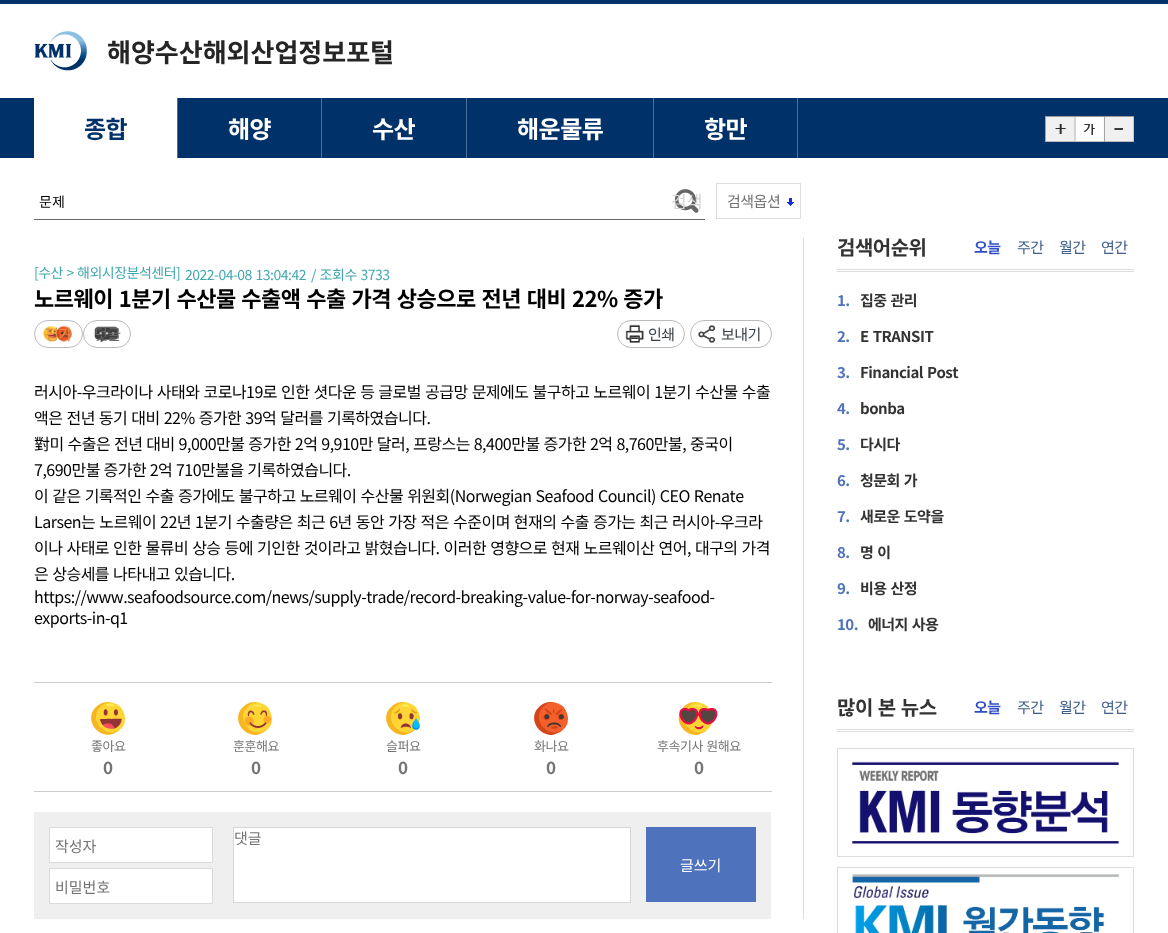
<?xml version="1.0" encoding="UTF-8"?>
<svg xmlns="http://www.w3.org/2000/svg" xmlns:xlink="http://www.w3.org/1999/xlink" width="1168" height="933">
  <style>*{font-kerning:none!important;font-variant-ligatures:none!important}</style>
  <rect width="100%" height="100%" fill="#ffffff" />
  <rect width="1168" height="4" fill="#003168" />
  <image x="34" y="31" width="53" height="40" xlink:href="image1.png" />
  <rect y="98" width="1168" height="60" fill="#003168" />
  <rect x="34" y="98" width="143" height="60" fill="#ffffff" />
  <rect x="177" y="98" width="1" height="60" fill="#4d6f96" />
  <rect x="321" y="98" width="1" height="60" fill="#4d6f96" />
  <rect x="466" y="98" width="1" height="60" fill="#4d6f96" />
  <rect x="653" y="98" width="1" height="60" fill="#4d6f96" />
  <rect x="797" y="98" width="1" height="60" fill="#4d6f96" />
  <image x="1045" y="116" width="30" height="26" xlink:href="image2.png" />
  <image x="1075" y="116" width="29" height="26" xlink:href="image3.png" />
  <image x="1104" y="116" width="30" height="26" xlink:href="image4.png" />
  <rect x="34" y="219" width="671" height="1" fill="#666666" />
  <image x="674" y="189" width="25" height="24" xlink:href="image5.png" />
  <image x="787" y="198" width="7" height="8" xlink:href="image6.png" />
  <rect x="716.5" y="183.5" width="84" height="35" fill="none" stroke="#dddddd" />
  <rect x="803" y="238" width="1" height="681" fill="#dddddd" />
  <image x="43" y="325" width="29" height="17" xlink:href="image7.png" />
  <rect x="34.5" y="320.5" width="48" height="27" rx="13.5" fill="none" stroke="#bbbbbb" />
  <image x="94" y="326" width="25" height="17" xlink:href="image8.png" />
  <rect x="83.5" y="320.5" width="47" height="27" rx="13.5" fill="none" stroke="#bbbbbb" />
  <image x="625" y="324" width="19" height="19" xlink:href="image9.png" />
  <rect x="617.5" y="320.5" width="67" height="27" rx="13.5" fill="none" stroke="#bbbbbb" />
  <image x="698" y="325" width="17" height="18" xlink:href="image10.png" />
  <rect x="690.5" y="320.5" width="81" height="27" rx="13.5" fill="none" stroke="#bbbbbb" />
  <rect x="34" y="682" width="738" height="1" fill="#cccccc" />
  <rect x="34" y="791" width="738" height="1" fill="#cccccc" />
  <image x="91" y="702" width="34" height="33" xlink:href="image11.png" />
  <image x="238" y="702" width="34" height="33" xlink:href="image12.png" />
  <image x="386" y="702" width="34" height="33" xlink:href="image13.png" />
  <image x="534" y="702" width="34" height="33" xlink:href="image14.png" />
  <image x="678" y="702" width="40" height="33" xlink:href="image15.png" />
  <rect x="34" y="812" width="737" height="107" fill="#efefef" />
  <rect x="49.5" y="827.5" width="163" height="35" fill="#ffffff" stroke="#dbdbdb" />
  <rect x="49.5" y="868.5" width="163" height="35" fill="#ffffff" stroke="#dbdbdb" />
  <rect x="233.5" y="827.5" width="397" height="75" fill="#ffffff" stroke="#d7d7d7" />
  <rect x="646" y="827" width="110" height="75" fill="#4f72bd" />
  <rect x="837" y="269" width="297" height="1" fill="#dddddd" />
  <rect x="837" y="271" width="297" height="1" fill="#dddddd" />
  <rect x="837" y="729" width="297" height="1" fill="#dddddd" />
  <rect x="837" y="731" width="297" height="1" fill="#dddddd" />
  <rect x="837.5" y="748.5" width="296" height="108" fill="none" stroke="#dddddd" />
  <image x="852" y="761" width="267" height="83" xlink:href="image16.png" />
  <rect x="837.5" y="867.5" width="296" height="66" fill="none" stroke="#dddddd" />
  <image x="852" y="874" width="268" height="59" xlink:href="image17.png" />
  <text x="107" y="62" style="font-family: Noto Sans KR; font-size: 26px; font-weight: bold; fill: #252525">해양수산해외산업정보포털</text>
  <text x="84" y="138" style="font-family: Noto Sans KR; font-size: 24px; font-weight: bold; letter-spacing: -0.5px; fill: #003168">종합</text>
  <text x="228" y="138" style="font-family: Noto Sans KR; font-size: 24px; font-weight: bold; letter-spacing: -0.5px; fill: #ffffff">해양</text>
  <text x="372" y="138" style="font-family: Noto Sans KR; font-size: 24px; font-weight: bold; letter-spacing: -0.5px; fill: #ffffff">수산</text>
  <text x="517" y="138" style="font-family: Noto Sans KR; font-size: 24px; font-weight: bold; letter-spacing: -0.5px; fill: #ffffff">해운물류</text>
  <text x="704" y="138" style="font-family: Noto Sans KR; font-size: 24px; font-weight: bold; letter-spacing: -0.5px; fill: #ffffff">항만</text>
  <text x="39" y="207" style="font-family: Noto Sans KR; font-size: 14px; fill: #000000">문제</text>
  <text x="671" y="208" style="font-family: Noto Sans KR; font-size: 17px; fill: #d2d2d2">검색</text>
  <text x="727" y="207" style="font-family: Noto Sans KR; font-size: 15px; letter-spacing: -0.5px; fill: #747474">검색옵션</text>
  <text x="34" y="278" word-spacing="0.75" style="font-family: Noto Sans KR; font-size: 14px; letter-spacing: -0.5px; fill: #41a7b0">[수산 &gt; 해외시장분석센터]</text>
  <text x="185" y="280" word-spacing="1" style="font-family: Noto Sans KR; font-size: 14px; letter-spacing: -0.5px; fill: #41a7b0">2022-04-08 13:04:42</text>
  <text x="311" y="280" word-spacing="1" style="font-family: Noto Sans KR; font-size: 14px; letter-spacing: -0.5px; fill: #41a7b0">/ 조회수 3733</text>
  <text x="34" y="307" word-spacing="1.25" style="font-family: Noto Sans KR; font-size: 22px; font-weight: bold; letter-spacing: -0.5px; fill: #000000">노르웨이 1분기 수산물 수출액 수출 가격 상승으로 전년 대비 22% 증가</text>
  <text x="45" y="340" style="font-family: Noto Sans KR; font-size: 15px; letter-spacing: -0.5px; fill: #e28e47">평가</text>
  <text x="94" y="340" style="font-family: Noto Sans KR; font-size: 15px; letter-spacing: -0.5px; fill: #686869">덧글</text>
  <text x="648" y="340" style="font-family: Noto Sans KR; font-size: 15px; letter-spacing: -0.5px; fill: #393f46">인쇄</text>
  <text x="721" y="340" style="font-family: Noto Sans KR; font-size: 15px; letter-spacing: -0.5px; fill: #393f46">보내기</text>
  <text x="34" y="398" word-spacing="0.9" style="font-family: Noto Sans KR; font-size: 16px; letter-spacing: -0.5px; fill: #000000">러시아-우크라이나 사태와 코로나19로 인한 셧다운 등 글로벌 공급망 문제에도 불구하고 노르웨이 1분기 수산물 수출</text>
  <text x="34" y="424" word-spacing="0.9" style="font-family: Noto Sans KR; font-size: 16px; letter-spacing: -0.5px; fill: #000000">액은 전년 동기 대비 22% 증가한 39억 달러를 기록하였습니다.</text>
  <text x="34" y="450" word-spacing="0.75" style="font-family: Noto Sans KR; font-size: 16px; letter-spacing: -0.5px; fill: #000000">對미 수출은 전년 대비 9,000만불 증가한 2억 9,910만 달러, 프랑스는 8,400만불 증가한 2억 8,760만불, 중국이</text>
  <text x="34" y="476" word-spacing="0.5" style="font-family: Noto Sans KR; font-size: 16px; letter-spacing: -0.5px; fill: #000000">7,690만불 증가한 2억 710만불을 기록하였습니다.</text>
  <text x="34" y="502" word-spacing="0.9" style="font-family: Noto Sans KR; font-size: 16px; letter-spacing: -0.5px; fill: #000000">이 같은 기록적인 수출 증가에도 불구하고 노르웨이 수산물 위원회(Norwegian Seafood Council) CEO Renate</text>
  <text x="34" y="528" word-spacing="0.9" style="font-family: Noto Sans KR; font-size: 16px; letter-spacing: -0.5px; fill: #000000">Larsen는 노르웨이 22년 1분기 수출량은 최근 6년 동안 가장 적은 수준이며 현재의 수출 증가는 최근 러시아-우크라</text>
  <text x="34" y="554" word-spacing="0.9" style="font-family: Noto Sans KR; font-size: 16px; letter-spacing: -0.5px; fill: #000000">이나 사태로 인한 물류비 상승 등에 기인한 것이라고 밝혔습니다. 이러한 영향으로 현재 노르웨이산 연어, 대구의 가격</text>
  <text x="34" y="580" word-spacing="0.9" style="font-family: Noto Sans KR; font-size: 16px; letter-spacing: -0.5px; fill: #000000">은 상승세를 나타내고 있습니다.</text>
  <text x="34" y="603" style="font-family: Noto Sans KR; font-size: 16px; letter-spacing: -0.5px; fill: #000000">https://www.seafoodsource.com/news/supply-trade/record-breaking-value-for-norway-seafood-</text>
  <text x="34" y="624" style="font-family: Noto Sans KR; font-size: 16px; letter-spacing: -0.5px; fill: #000000">exports-in-q1</text>
  <text x="91" y="751" style="font-family: Noto Sans KR; font-size: 13px; letter-spacing: -0.5px; fill: #747474">좋아요</text>
  <text x="103" y="774" style="font-family: Noto Sans KR; font-size: 17px; font-weight: bold; letter-spacing: -0.5px; fill: #747474">0</text>
  <text x="233" y="751" style="font-family: Noto Sans KR; font-size: 13px; letter-spacing: -0.5px; fill: #747474">훈훈해요</text>
  <text x="251" y="774" style="font-family: Noto Sans KR; font-size: 17px; font-weight: bold; letter-spacing: -0.5px; fill: #747474">0</text>
  <text x="386" y="751" style="font-family: Noto Sans KR; font-size: 13px; letter-spacing: -0.5px; fill: #747474">슬퍼요</text>
  <text x="398" y="774" style="font-family: Noto Sans KR; font-size: 17px; font-weight: bold; letter-spacing: -0.5px; fill: #747474">0</text>
  <text x="534" y="751" style="font-family: Noto Sans KR; font-size: 13px; letter-spacing: -0.5px; fill: #747474">화나요</text>
  <text x="546" y="774" style="font-family: Noto Sans KR; font-size: 17px; font-weight: bold; letter-spacing: -0.5px; fill: #747474">0</text>
  <text x="657" y="751" word-spacing="1" style="font-family: Noto Sans KR; font-size: 13px; letter-spacing: -0.5px; fill: #747474">후속기사 원해요</text>
  <text x="694" y="774" style="font-family: Noto Sans KR; font-size: 17px; font-weight: bold; letter-spacing: -0.5px; fill: #747474">0</text>
  <text x="55" y="852" style="font-family: Noto Sans KR; font-size: 15px; fill: #747474">작성자</text>
  <text x="55" y="893" style="font-family: Noto Sans KR; font-size: 15px; fill: #747474">비밀번호</text>
  <text x="234" y="844" style="font-family: Noto Sans KR; font-size: 15px; fill: #747474">댓글</text>
  <text x="680" y="871" style="font-family: Noto Sans KR; font-size: 15px; fill: #ffffff">글쓰기</text>
  <text x="837" y="255" style="font-family: Noto Sans KR; font-size: 20px; font-weight: bold; letter-spacing: -0.5px; fill: #333333">검색어순위</text>
  <text x="974" y="253" style="font-family: Noto Sans KR; font-size: 15px; font-weight: bold; letter-spacing: -0.5px; fill: #314ec8">오늘</text>
  <text x="837" y="306" style="font-family: Noto Sans KR; font-size: 15px; font-weight: bold; letter-spacing: -0.5px; fill: #4f72bd">1.</text>
  <text x="860" y="306" word-spacing="1" style="font-family: Noto Sans KR; font-size: 15px; font-weight: bold; letter-spacing: -0.5px; fill: #333333">집중 관리</text>
  <text x="837" y="342" style="font-family: Noto Sans KR; font-size: 15px; font-weight: bold; letter-spacing: -0.5px; fill: #4f72bd">2.</text>
  <text x="860" y="342" word-spacing="1" style="font-family: Noto Sans KR; font-size: 15px; font-weight: bold; letter-spacing: -0.5px; fill: #333333">E TRANSIT</text>
  <text x="837" y="378" style="font-family: Noto Sans KR; font-size: 15px; font-weight: bold; letter-spacing: -0.5px; fill: #4f72bd">3.</text>
  <text x="860" y="378" word-spacing="1" style="font-family: Noto Sans KR; font-size: 15px; font-weight: bold; letter-spacing: -0.5px; fill: #333333">Financial Post</text>
  <text x="837" y="414" style="font-family: Noto Sans KR; font-size: 15px; font-weight: bold; letter-spacing: -0.5px; fill: #4f72bd">4.</text>
  <text x="860" y="414" style="font-family: Noto Sans KR; font-size: 15px; font-weight: bold; letter-spacing: -0.5px; fill: #333333">bonba</text>
  <text x="837" y="450" style="font-family: Noto Sans KR; font-size: 15px; font-weight: bold; letter-spacing: -0.5px; fill: #4f72bd">5.</text>
  <text x="860" y="450" style="font-family: Noto Sans KR; font-size: 15px; font-weight: bold; letter-spacing: -0.5px; fill: #333333">다시다</text>
  <text x="837" y="486" style="font-family: Noto Sans KR; font-size: 15px; font-weight: bold; letter-spacing: -0.5px; fill: #4f72bd">6.</text>
  <text x="860" y="486" word-spacing="1" style="font-family: Noto Sans KR; font-size: 15px; font-weight: bold; letter-spacing: -0.5px; fill: #333333">청문회 가</text>
  <text x="837" y="522" style="font-family: Noto Sans KR; font-size: 15px; font-weight: bold; letter-spacing: -0.5px; fill: #4f72bd">7.</text>
  <text x="860" y="522" word-spacing="1" style="font-family: Noto Sans KR; font-size: 15px; font-weight: bold; letter-spacing: -0.5px; fill: #333333">새로운 도약을</text>
  <text x="837" y="558" style="font-family: Noto Sans KR; font-size: 15px; font-weight: bold; letter-spacing: -0.5px; fill: #4f72bd">8.</text>
  <text x="860" y="558" word-spacing="1" style="font-family: Noto Sans KR; font-size: 15px; font-weight: bold; letter-spacing: -0.5px; fill: #333333">명 이</text>
  <text x="837" y="594" style="font-family: Noto Sans KR; font-size: 15px; font-weight: bold; letter-spacing: -0.5px; fill: #4f72bd">9.</text>
  <text x="860" y="594" word-spacing="1" style="font-family: Noto Sans KR; font-size: 15px; font-weight: bold; letter-spacing: -0.5px; fill: #333333">비용 산정</text>
  <text x="837" y="630" style="font-family: Noto Sans KR; font-size: 15px; font-weight: bold; letter-spacing: -0.5px; fill: #4f72bd">10.</text>
  <text x="868" y="630" word-spacing="1" style="font-family: Noto Sans KR; font-size: 15px; font-weight: bold; letter-spacing: -0.5px; fill: #333333">에너지 사용</text>
  <text x="1017" y="253" style="font-family: Noto Sans KR; font-size: 15px; letter-spacing: -0.5px; fill: #405e8b">주간</text>
  <text x="1059" y="253" style="font-family: Noto Sans KR; font-size: 15px; letter-spacing: -0.5px; fill: #405e8b">월간</text>
  <text x="1101" y="253" style="font-family: Noto Sans KR; font-size: 15px; letter-spacing: -0.5px; fill: #405e8b">연간</text>
  <text x="837" y="715" word-spacing="1" style="font-family: Noto Sans KR; font-size: 20px; font-weight: bold; letter-spacing: -0.5px; fill: #333333">많이 본 뉴스</text>
  <text x="974" y="713" style="font-family: Noto Sans KR; font-size: 15px; font-weight: bold; letter-spacing: -0.5px; fill: #314ec8">오늘</text>
  <text x="1017" y="713" style="font-family: Noto Sans KR; font-size: 15px; letter-spacing: -0.5px; fill: #405e8b">주간</text>
  <text x="1059" y="713" style="font-family: Noto Sans KR; font-size: 15px; letter-spacing: -0.5px; fill: #405e8b">월간</text>
  <text x="1101" y="713" style="font-family: Noto Sans KR; font-size: 15px; letter-spacing: -0.5px; fill: #405e8b">연간</text>
</svg>
